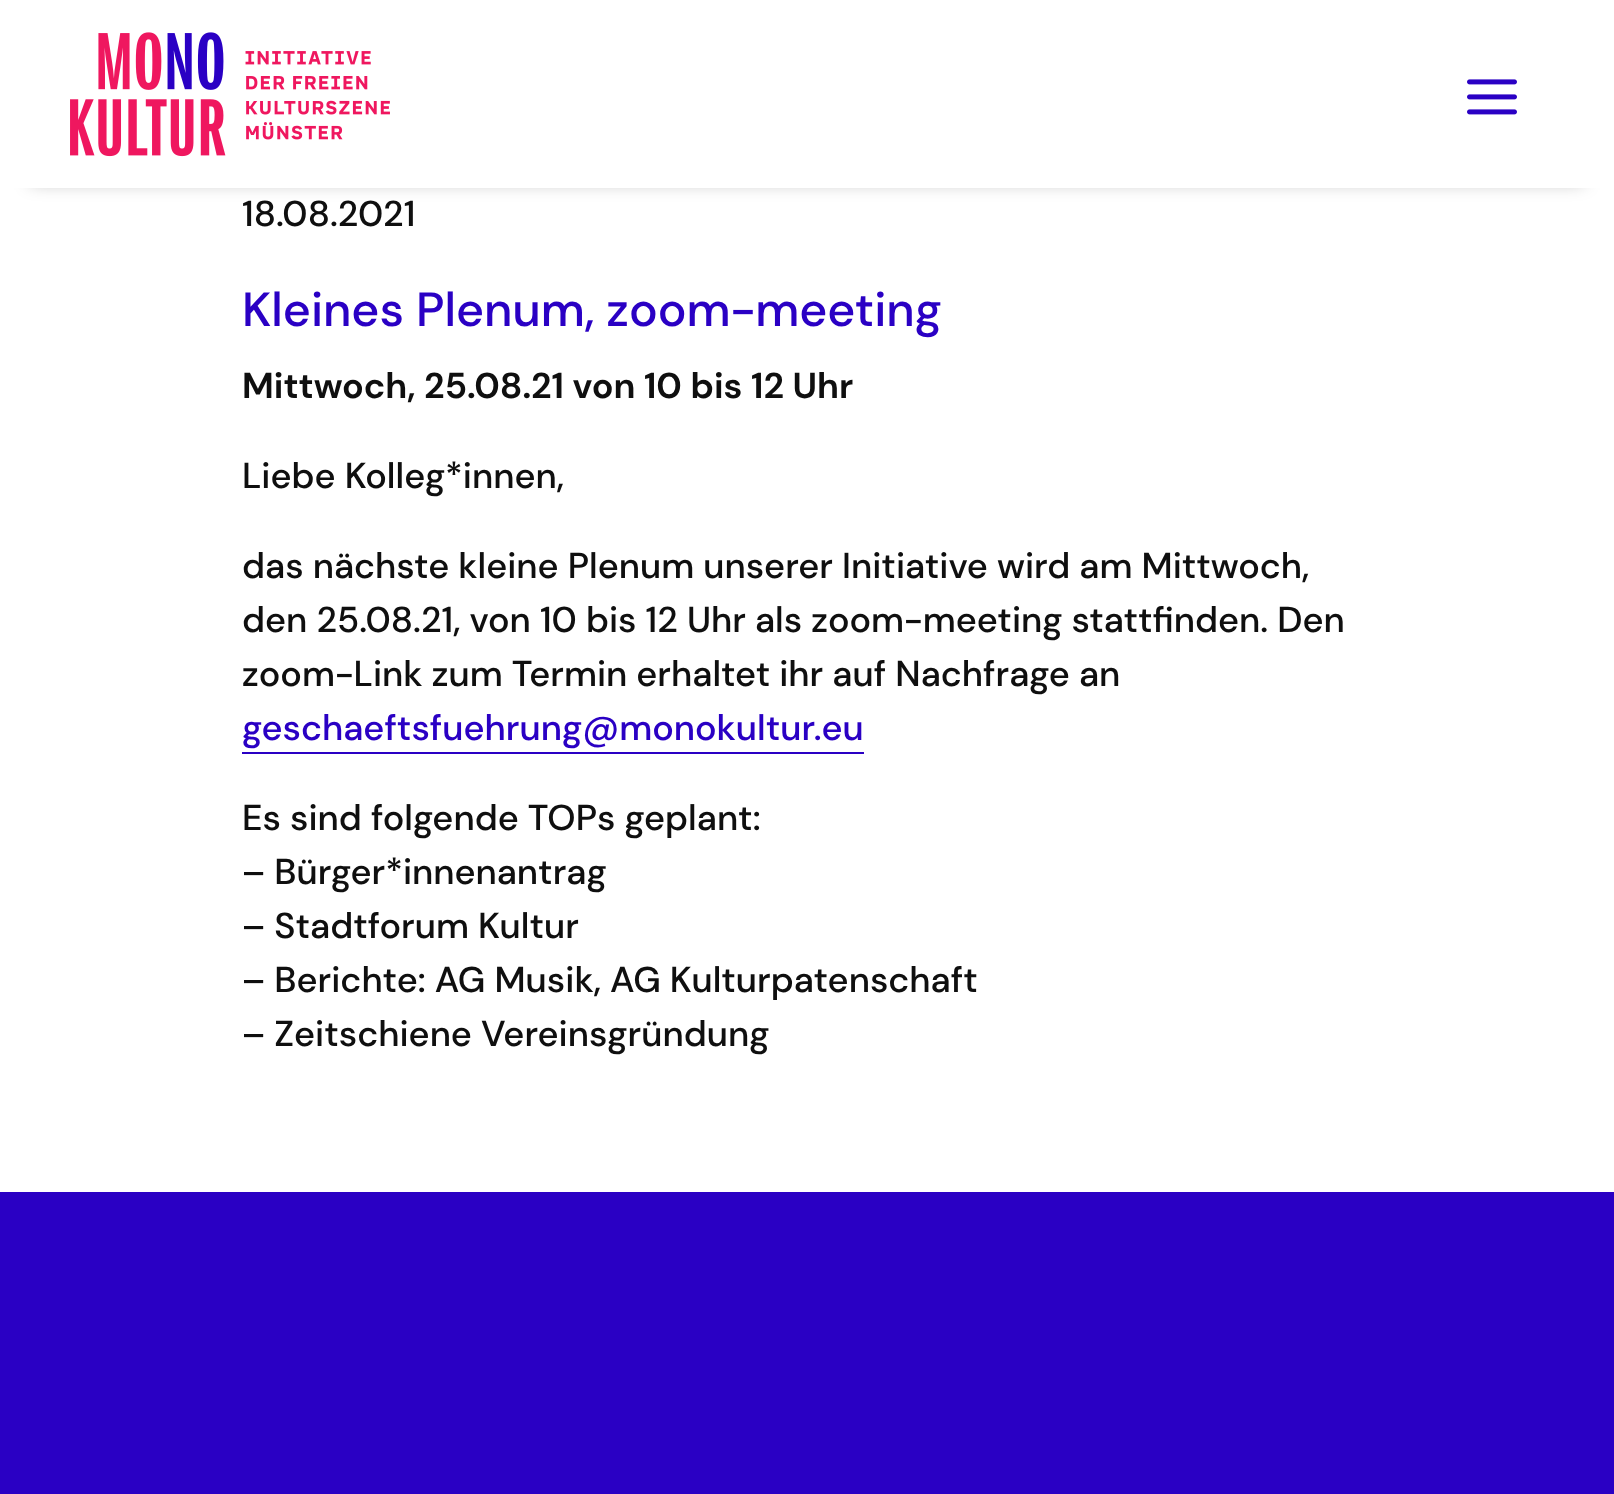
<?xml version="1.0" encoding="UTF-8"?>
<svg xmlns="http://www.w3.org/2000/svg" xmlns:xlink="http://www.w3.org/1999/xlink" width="1614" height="1494">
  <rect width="100%" height="100%" fill="#2a00c4" />
  <rect y="188" width="1614" height="1004" fill="#ffffff" />
  <rect x="30" y="54" width="1554" height="128" fill="#000000" fill-opacity="0.3" filter="blur(9px)" />
  <rect width="1614" height="188" fill="#ffffff" />
  <image x="70" y="32" width="320" height="125" xlink:href="image1.png" />
  <image x="1467" y="79" width="50" height="36" xlink:href="image2.png" />
  <rect x="242" y="752" width="622" height="2" fill="#2a00c4" />
  <text x="242" y="226" style="font-family: DM Sans; font-size: 36px; font-weight: 500; fill: #0f0f0f">18.08.2021</text>
  <text x="242" y="326" style="font-family: DM Sans; font-size: 48px; font-weight: 500; fill: #2a00c4">Kleines Plenum, zoom-meeting</text>
  <text x="242" y="398" style="font-family: DM Sans; font-size: 36px; font-weight: bold; fill: #0f0f0f">Mittwoch, 25.08.21 von 10 bis 12 Uhr</text>
  <text x="242" y="488" style="font-family: DM Sans; font-size: 36px; font-weight: 500; fill: #0f0f0f">Liebe Kolleg*innen,</text>
  <text x="242" y="578" style="font-family: DM Sans; font-size: 36px; font-weight: 500; fill: #0f0f0f">das nächste kleine Plenum unserer Initiative wird am Mittwoch,</text>
  <text x="242" y="632" style="font-family: DM Sans; font-size: 36px; font-weight: 500; fill: #0f0f0f">den 25.08.21, von 10 bis 12 Uhr als zoom-meeting stattfinden. Den</text>
  <text x="242" y="686" style="font-family: DM Sans; font-size: 36px; font-weight: 500; fill: #0f0f0f">zoom-Link zum Termin erhaltet ihr auf Nachfrage an</text>
  <text x="242" y="740" style="font-family: DM Sans; font-size: 36px; font-weight: 500; fill: #2a00c4">geschaeftsfuehrung@monokultur.eu</text>
  <text x="242" y="830" style="font-family: DM Sans; font-size: 36px; font-weight: 500; fill: #0f0f0f">Es sind folgende TOPs geplant:</text>
  <text x="242" y="884" style="font-family: DM Sans; font-size: 36px; font-weight: 500; fill: #0f0f0f">– Bürger*innenantrag</text>
  <text x="242" y="938" style="font-family: DM Sans; font-size: 36px; font-weight: 500; fill: #0f0f0f">– Stadtforum Kultur</text>
  <text x="242" y="992" style="font-family: DM Sans; font-size: 36px; font-weight: 500; fill: #0f0f0f">– Berichte: AG Musik, AG Kulturpatenschaft</text>
  <text x="242" y="1046" style="font-family: DM Sans; font-size: 36px; font-weight: 500; fill: #0f0f0f">– Zeitschiene Vereinsgründung</text>
</svg>
